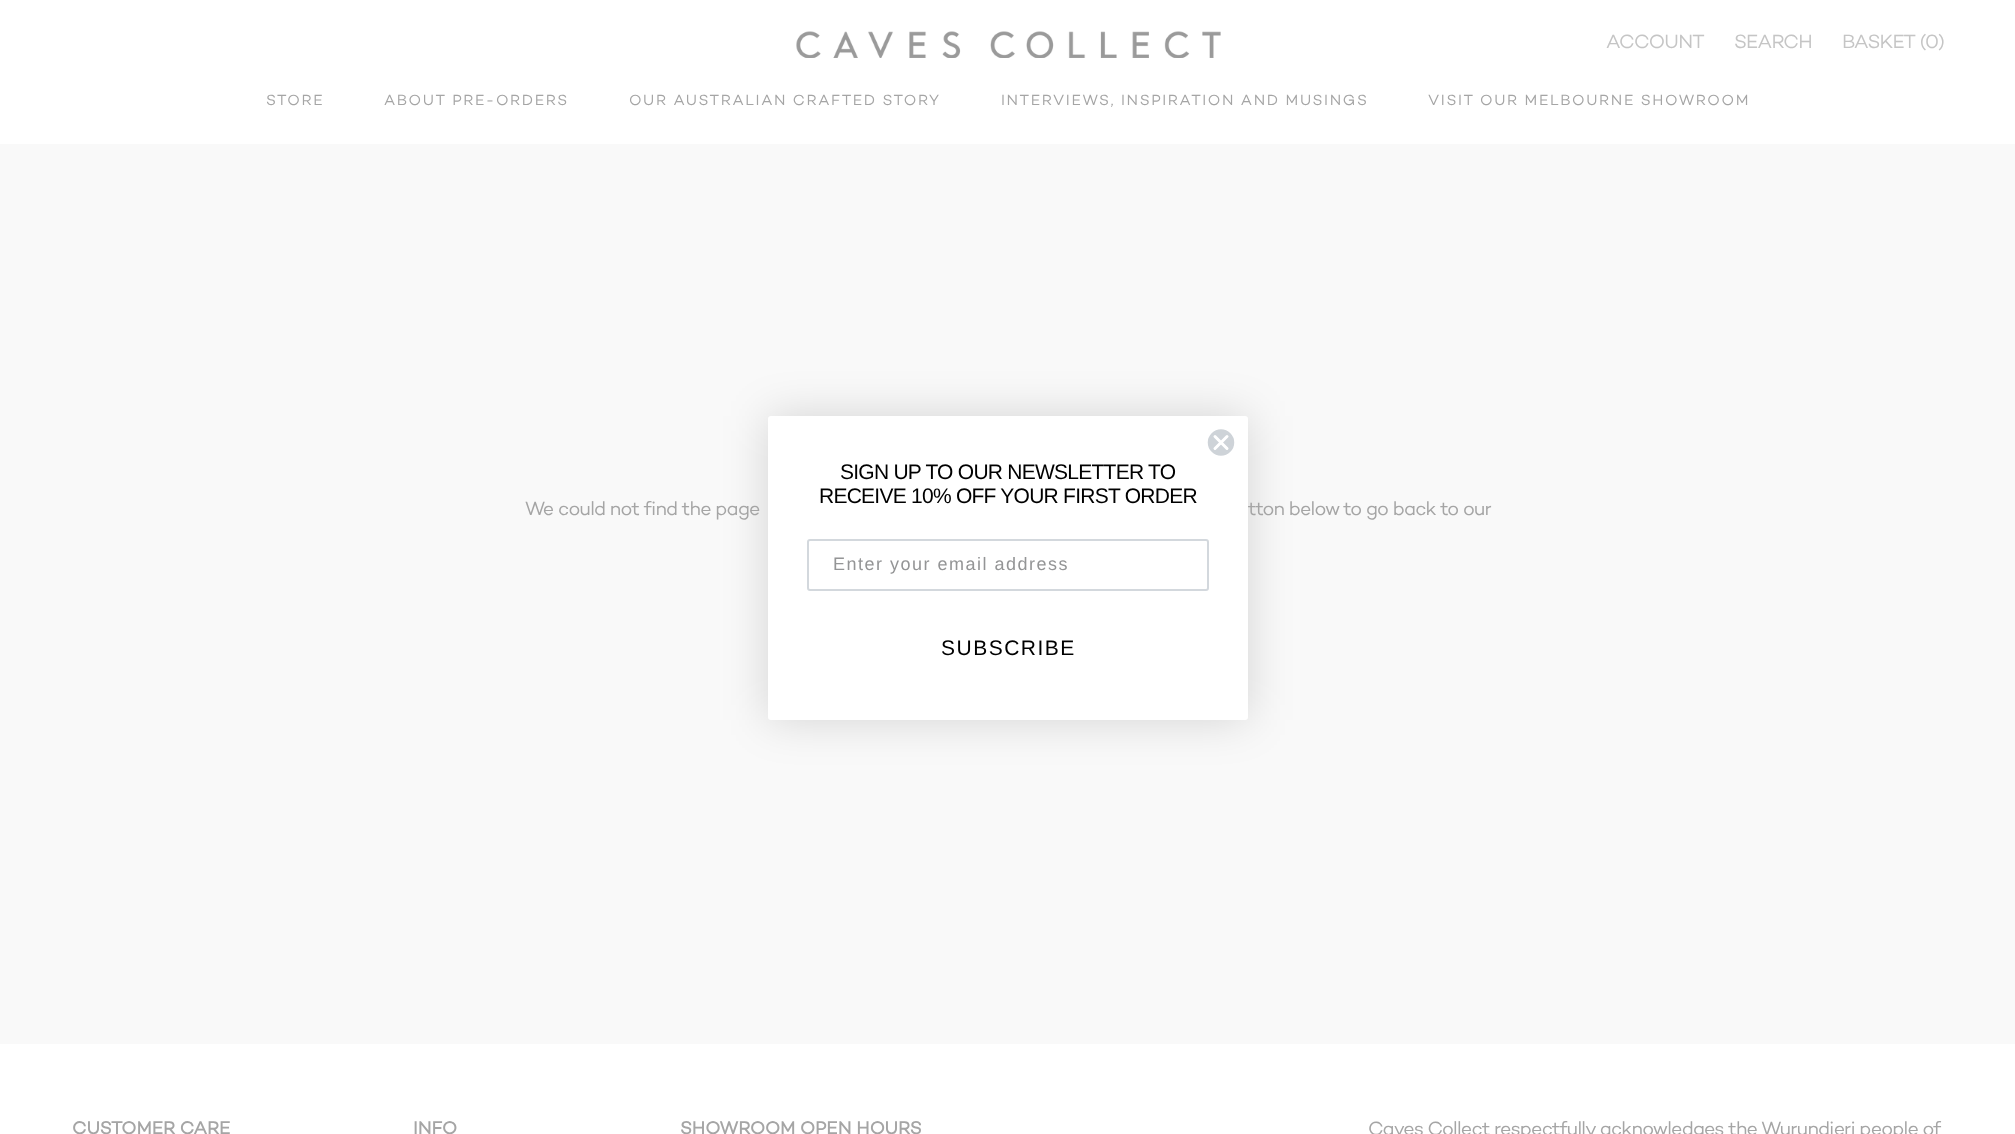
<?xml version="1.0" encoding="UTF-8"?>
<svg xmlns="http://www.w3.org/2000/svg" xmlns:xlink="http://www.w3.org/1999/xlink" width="2015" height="1134">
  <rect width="100%" height="100%" fill="#f9f9f9" />
  <rect width="2015" height="144" fill="#ffffff" />
  <image x="796" y="31" width="425" height="27" xlink:href="image1.png" />
  <rect x="768" y="416" width="480" height="304" fill="#000000" fill-opacity="0.15" filter="blur(22.5px)" />
  <rect y="1044" width="2015" height="90" fill="#ffffff" />
  <text x="1606" y="48" style="font-family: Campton; font-size: 19.5px; letter-spacing: -0.75px; fill: #c5c5c5">ACCOUNT</text>
  <text x="1734" y="48" style="font-family: Campton; font-size: 19.5px; letter-spacing: -0.75px; fill: #c5c5c5">SEARCH</text>
  <text x="1842" y="48" style="font-family: Campton; font-size: 19.5px; letter-spacing: -0.75px; fill: #c5c5c5">BASKET (</text>
  <text x="1925" y="48" style="font-family: Campton; font-size: 19.5px; letter-spacing: -0.75px; fill: #c5c5c5">0</text>
  <text x="1938" y="48" style="font-family: Campton; font-size: 19.5px; letter-spacing: -0.75px; fill: #c5c5c5">)</text>
  <text x="266" y="105" style="font-family: Campton; font-size: 15px; letter-spacing: 1.65px; fill: #a5a5a5">STORE</text>
  <text x="384" y="105" style="font-family: Campton; font-size: 15px; letter-spacing: 1.65px; fill: #a5a5a5">ABOUT PRE-ORDERS</text>
  <text x="629" y="105" style="font-family: Campton; font-size: 15px; letter-spacing: 1.65px; fill: #a5a5a5">OUR AUSTRALIAN CRAFTED STORY</text>
  <text x="1001" y="105" style="font-family: Campton; font-size: 15px; letter-spacing: 1.65px; fill: #a5a5a5">INTERVIEWS, INSPIRATION AND MUSINGS</text>
  <text x="1428" y="105" style="font-family: Campton; font-size: 15px; letter-spacing: 1.65px; fill: #a5a5a5">VISIT OUR MELBOURNE SHOWROOM</text>
  <text x="525" y="515" style="font-family: Campton; font-size: 19.5px; letter-spacing: -0.75px; fill: #a5a5a5">We could not find the page</text>
  <text x="1248" y="515" style="font-family: Campton; font-size: 19.5px; letter-spacing: -0.75px; fill: #a5a5a5">tton below to go back to our</text>
  <rect x="768" y="416" width="480" height="304" rx="3" fill="#ffffff" />
  <circle cx="1221" cy="442.5" r="14" fill="#ced3d8" stroke="#ffffff" stroke-width="1.5" />
  <path d="M 1215 436.5 l 12 12 m -12 0 l 12 -12 z" fill="none" stroke="#ffffff" stroke-width="3" stroke-linecap="round" stroke-linejoin="round" />
  <text x="941" y="655" style="font-family: Liberation Sans; font-size: 21px; letter-spacing: 1.5px; fill: #000000">SUBSCRIBE</text>
  <rect x="808" y="540" width="400" height="50" rx="2" fill="none" stroke="#d3d8dd" stroke-width="2" />
  <text x="833" y="570" style="font-family: Liberation Sans; font-size: 18px; letter-spacing: 1.5px; fill: #949596">Enter your email address</text>
  <text x="819" y="503" style="font-family: Liberation Sans; font-size: 21px; letter-spacing: -0.75px; fill: #000000">RECEIVE 10% OFF YOUR FIRST ORDER</text>
  <text x="840" y="479" style="font-family: Liberation Sans; font-size: 21px; letter-spacing: -0.75px; fill: #000000">SIGN UP TO OUR NEWSLETTER TO</text>
  <text x="72" y="1134" style="font-family: Campton; font-size: 18px; font-weight: bold; fill: #a5a5a5">CUSTOMER CARE</text>
  <text x="413" y="1134" style="font-family: Campton; font-size: 18px; font-weight: bold; fill: #a5a5a5">INFO</text>
  <text x="680" y="1134" style="font-family: Campton; font-size: 18px; font-weight: bold; fill: #a5a5a5">SHOWROOM OPEN HOURS</text>
  <text x="1368" y="1135" style="font-family: Campton; font-size: 19.5px; letter-spacing: -0.75px; fill: #a5a5a5">Caves Collect respectfully acknowledges the Wurundjeri people of</text>
</svg>
